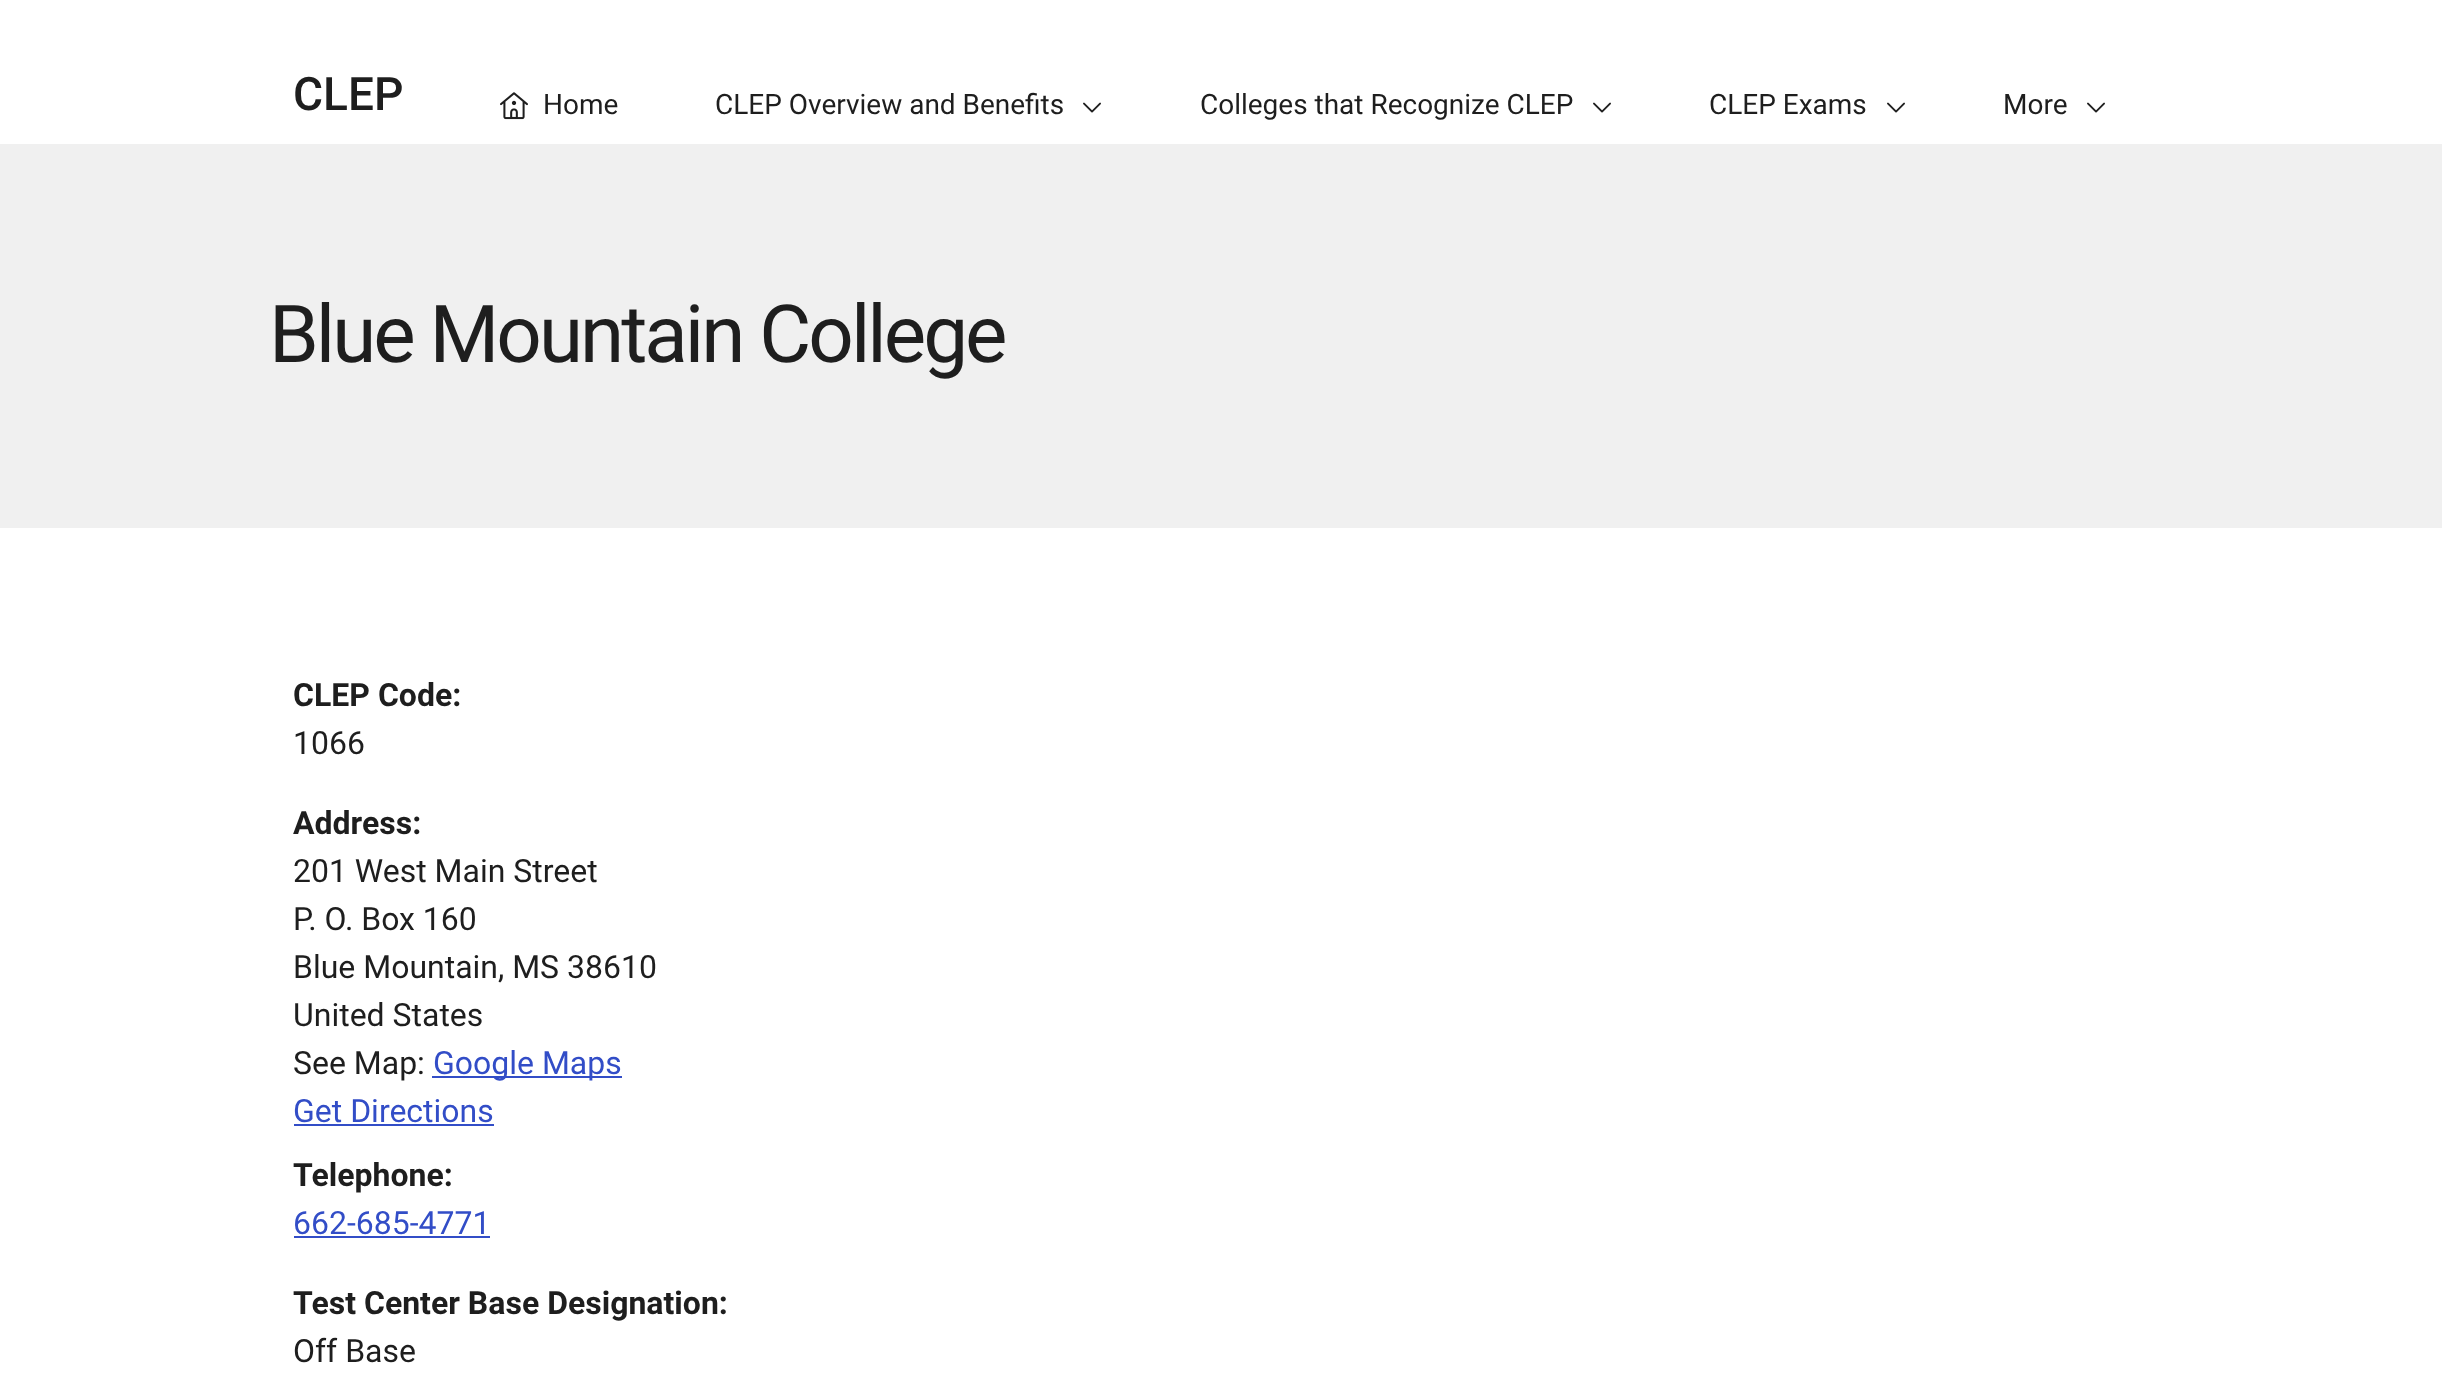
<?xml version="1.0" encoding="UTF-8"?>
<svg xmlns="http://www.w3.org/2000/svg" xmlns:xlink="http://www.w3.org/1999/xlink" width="2442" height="1379">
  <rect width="100%" height="100%" fill="#ffffff" />
  <image x="500" y="92" width="28" height="28" xlink:href="image1.png" />
  <image x="1083" y="102" width="18" height="11" xlink:href="image2.png" />
  <image x="1593" y="102" width="18" height="11" xlink:href="image2.png" />
  <image x="1887" y="102" width="18" height="11" xlink:href="image2.png" />
  <image x="2087" y="102" width="18" height="11" xlink:href="image2.png" />
  <rect y="144" width="2442" height="384" fill="#f0f0f0" />
  <rect x="432" y="1076" width="190" height="2" fill="#324dc7" />
  <rect x="294" y="1124" width="200" height="2" fill="#324dc7" />
  <rect x="294" y="1236" width="196" height="2" fill="#324dc7" />
  <text x="293" y="110" style="font-family: Roboto; font-size: 46px; font-weight: 500; fill: #1e1e1e">CLEP</text>
  <text x="543" y="114" style="font-family: Roboto; font-size: 28px; fill: #1e1e1e">Home</text>
  <text x="715" y="114" style="font-family: Roboto; font-size: 28px; fill: #1e1e1e">CLEP Overview and Benefits</text>
  <text x="1200" y="114" style="font-family: Roboto; font-size: 28px; fill: #1e1e1e">Colleges that Recognize CLEP</text>
  <text x="1709" y="114" style="font-family: Roboto; font-size: 28px; fill: #1e1e1e">CLEP Exams</text>
  <text x="2003" y="114" style="font-family: Roboto; font-size: 28px; fill: #1e1e1e">More</text>
  <text x="269" y="362" style="font-family: Roboto; font-size: 80px; letter-spacing: -3px; fill: #1e1e1e">Blue Mountain College</text>
  <text x="293" y="706" style="font-family: Roboto; font-size: 32px; font-weight: bold; fill: #1e1e1e">CLEP Code:</text>
  <text x="293" y="754" style="font-family: Roboto; font-size: 32px; fill: #1e1e1e">1066</text>
  <text x="293" y="834" style="font-family: Roboto; font-size: 32px; font-weight: bold; fill: #1e1e1e">Address:</text>
  <text x="293" y="882" style="font-family: Roboto; font-size: 32px; fill: #1e1e1e">201 West Main Street</text>
  <text x="293" y="930" style="font-family: Roboto; font-size: 32px; fill: #1e1e1e">P. O. Box 160</text>
  <text x="293" y="978" style="font-family: Roboto; font-size: 32px; fill: #1e1e1e">Blue Mountain, MS 38610</text>
  <text x="293" y="1026" style="font-family: Roboto; font-size: 32px; fill: #1e1e1e">United States</text>
  <text x="293" y="1074" style="font-family: Roboto; font-size: 32px; fill: #1e1e1e">See Map:</text>
  <text x="433" y="1074" style="font-family: Roboto; font-size: 32px; fill: #324dc7">Google Maps</text>
  <text x="293" y="1122" style="font-family: Roboto; font-size: 32px; fill: #324dc7">Get Directions</text>
  <text x="293" y="1186" style="font-family: Roboto; font-size: 32px; font-weight: bold; fill: #1e1e1e">Telephone:</text>
  <text x="293" y="1234" style="font-family: Roboto; font-size: 32px; fill: #324dc7">662-685-4771</text>
  <text x="293" y="1314" style="font-family: Roboto; font-size: 32px; font-weight: bold; fill: #1e1e1e">Test Center Base Designation:</text>
  <text x="293" y="1362" style="font-family: Roboto; font-size: 32px; fill: #1e1e1e">Off Base</text>
</svg>
